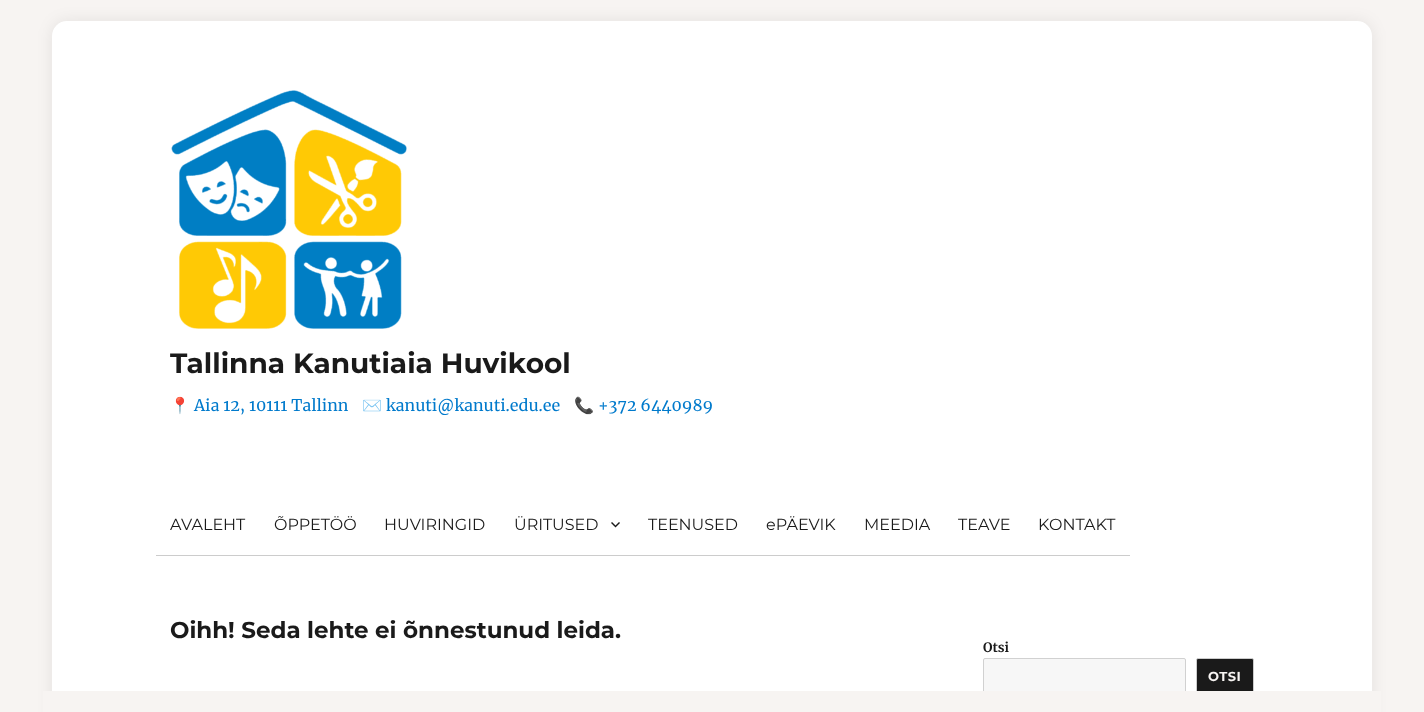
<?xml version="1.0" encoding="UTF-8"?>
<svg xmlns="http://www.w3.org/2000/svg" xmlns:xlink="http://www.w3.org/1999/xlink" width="1424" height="712">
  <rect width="100%" height="100%" fill="#f7f4f2" />
  <rect x="52" y="21" width="1320" height="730" rx="15" fill="#000000" fill-opacity="0.08" filter="blur(8px)" />
  <rect x="52" y="21" width="1320" height="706" rx="15" fill="#ffffff" />
  <image x="171" y="90" width="236" height="239" xlink:href="image1.png" />
  <rect x="156" y="555" width="974" height="1" fill="#cccccc" />
  <image x="611" y="522" width="9" height="6" xlink:href="image2.png" />
  <rect x="983.5" y="658.5" width="202" height="36" rx="1.5" fill="#f7f7f7" stroke="#d1d1d1" />
  <rect x="1196.5" y="658.5" width="57" height="36" rx="1.5" fill="#1a1a1a" stroke="#cccccc" />
  <rect x="43" y="691" width="1338" height="21" fill="#f7f4f2" />
  <text x="170" y="373" style="font-family: Montserrat; font-size: 28px; font-weight: 100; fill: #1a1a1a">Tallinna Kanutiaia Huvikool</text>
  <text x="170" y="411" style="font-family: Noto Color Emoji; font-size: 16px; fill: #1a1a1a">📍</text>
  <text x="194" y="411" style="font-family: Merriweather; font-size: 16px; fill: #007acc">Aia 12, 10111 Tallinn</text>
  <text x="362" y="411" style="font-family: Noto Color Emoji; font-size: 16px; fill: #1a1a1a">✉️</text>
  <text x="386" y="411" style="font-family: Merriweather; font-size: 16px; fill: #007acc">kanuti@kanuti.edu.ee</text>
  <text x="574" y="411" style="font-family: Noto Color Emoji; font-size: 16px; fill: #1a1a1a">📞</text>
  <text x="598" y="411" style="font-family: Merriweather; font-size: 16px; fill: #007acc">+372 6440989</text>
  <text x="170" y="530" style="font-family: 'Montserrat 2'; font-size: 16px; font-weight: 100; fill: #1a1a1a">AVALEHT</text>
  <text x="274" y="530" style="font-family: 'Montserrat 2'; font-size: 16px; font-weight: 100; fill: #1a1a1a">ÕPPETÖÖ</text>
  <text x="384" y="530" style="font-family: 'Montserrat 2'; font-size: 16px; font-weight: 100; fill: #1a1a1a">HUVIRINGID</text>
  <text x="514" y="530" style="font-family: 'Montserrat 2'; font-size: 16px; font-weight: 100; fill: #1a1a1a">ÜRITUSED</text>
  <text x="648" y="530" style="font-family: 'Montserrat 2'; font-size: 16px; font-weight: 100; fill: #1a1a1a">TEENUSED</text>
  <text x="766" y="530" style="font-family: 'Montserrat 2'; font-size: 16px; font-weight: 100; fill: #1a1a1a">ePÄEVIK</text>
  <text x="864" y="530" style="font-family: 'Montserrat 2'; font-size: 16px; font-weight: 100; fill: #1a1a1a">MEEDIA</text>
  <text x="958" y="530" style="font-family: 'Montserrat 2'; font-size: 16px; font-weight: 100; fill: #1a1a1a">TEAVE</text>
  <text x="1038" y="530" style="font-family: 'Montserrat 2'; font-size: 16px; font-weight: 100; fill: #1a1a1a">KONTAKT</text>
  <text x="170" y="638" style="font-family: Montserrat; font-size: 23px; font-weight: 100; fill: #1a1a1a">Oihh! Seda lehte ei õnnestunud leida.</text>
  <text x="983" y="652" style="font-family: Merriweather; font-size: 13px; font-weight: bold; fill: #1a1a1a">Otsi</text>
  <text x="1208" y="681" style="font-family: Montserrat; font-size: 13px; font-weight: 100; letter-spacing: 0.5px; fill: #f7f4f2">OTSI</text>
</svg>
